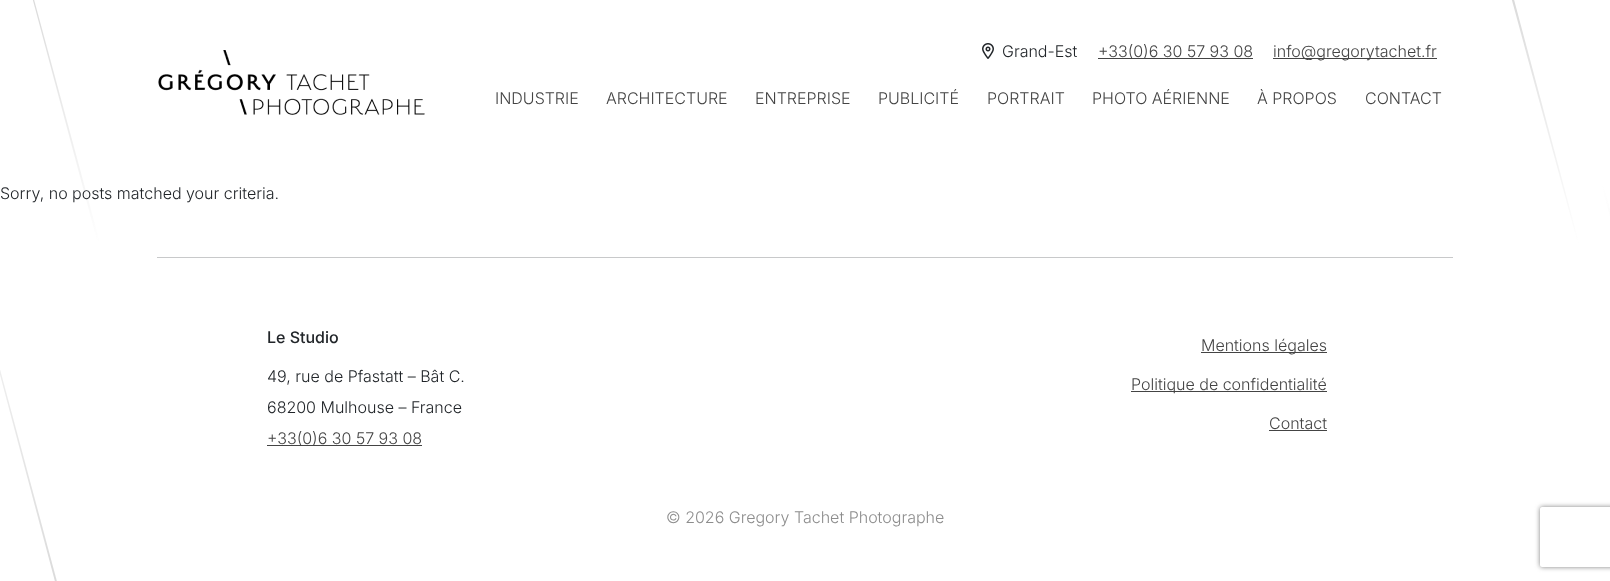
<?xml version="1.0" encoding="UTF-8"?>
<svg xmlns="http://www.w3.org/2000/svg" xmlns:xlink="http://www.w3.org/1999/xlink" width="1610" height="581">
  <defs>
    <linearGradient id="g1" gradientUnits="userSpaceOnUse" x1="32" y1="-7.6" x2="99" y2="244"><stop offset="0" stop-color="#444444" stop-opacity="0.2" /><stop offset="1" stop-color="#444444" stop-opacity="0" /></linearGradient>
    <linearGradient id="g2" gradientUnits="userSpaceOnUse" x1="1511" y1="-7.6" x2="1578" y2="244"><stop offset="0" stop-color="#dadada" /><stop offset="1" stop-color="#ffffff" /></linearGradient>
    <linearGradient id="g3" gradientUnits="userSpaceOnUse" x1="1582" y1="191" x2="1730" y2="581"><stop offset="0" stop-color="#ffffff" /><stop offset="1" stop-color="#dadada" /></linearGradient>
    <linearGradient id="g4" gradientUnits="userSpaceOnUse" x1="-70" y1="191" x2="78" y2="581"><stop offset="0" stop-color="#ffffff" /><stop offset="1" stop-color="#dadada" /></linearGradient>
    <clipPath id="clip1"><path d="M 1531 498 h 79 v 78 h -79 z m 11 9 h 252 c 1 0 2 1 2 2 v 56 c 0 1 -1 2 -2 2 h -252 c -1 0 -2 -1 -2 -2 v -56 c 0 -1 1 -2 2 -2 z" clip-rule="evenodd" /></clipPath>
  </defs>
  <rect width="100%" height="100%" fill="#ffffff" />
  <path d="M 31 -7 l 1 -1 l 68 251 l -2 1 z" fill="url(#g1)" />
  <image x="158" y="50" width="267" height="65" xlink:href="image1.png" />
  <image x="982" y="43" width="12" height="16" xlink:href="image2.png" />
  <rect x="1098" y="58" width="155" height="1" fill="#444444" />
  <rect x="1273" y="58" width="164" height="1" fill="#444444" />
  <path d="M 1510 -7 l 2 -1 l 67 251 l -1 1 z" fill="url(#g2)" />
  <path d="M 1601 183 h 2 l 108 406 h -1 z" fill="url(#g3)" />
  <rect x="157" y="257" width="1296" height="1" fill="#c8c9ca" />
  <path d="M -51 183 h 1 l 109 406 h -2 z" fill="url(#g4)" />
  <rect x="267" y="445" width="155" height="1" fill="#444444" />
  <rect x="1201" y="352" width="126" height="1" fill="#444444" />
  <rect x="1131" y="391" width="196" height="1" fill="#444444" />
  <rect x="1269" y="430" width="58" height="1" fill="#444444" />
  <g clip-path="url(#clip1)">
    <rect x="1540" y="507" width="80" height="60" rx="2" fill="#808080" filter="blur(2.5px)" />
  </g>
  <text x="1002" y="57" style="font-family: Inter; font-size: 16px; font-weight: 300; fill: #212529">Grand-Est</text>
  <text x="1098" y="57" style="font-family: Inter; font-size: 16px; font-weight: 300; fill: #444444">+33(0)6 30 57 93 08</text>
  <text x="1273" y="57" style="font-family: Inter; font-size: 16px; font-weight: 300; fill: #444444">info@gregorytachet.fr</text>
  <text x="495" y="104" style="font-family: Inter; font-size: 16px; font-weight: 300; fill: #444444">INDUSTRIE</text>
  <text x="606" y="104" style="font-family: Inter; font-size: 16px; font-weight: 300; fill: #444444">ARCHITECTURE</text>
  <text x="755" y="104" style="font-family: Inter; font-size: 16px; font-weight: 300; fill: #444444">ENTREPRISE</text>
  <text x="878" y="104" style="font-family: Inter; font-size: 16px; font-weight: 300; fill: #444444">PUBLICITÉ</text>
  <text x="987" y="104" style="font-family: Inter; font-size: 16px; font-weight: 300; fill: #444444">PORTRAIT</text>
  <text x="1092" y="104" style="font-family: Inter; font-size: 16px; font-weight: 300; fill: #444444">PHOTO AÉRIENNE</text>
  <text x="1257" y="104" style="font-family: Inter; font-size: 16px; font-weight: 300; fill: #444444">À PROPOS</text>
  <text x="1365" y="104" style="font-family: Inter; font-size: 16px; font-weight: 300; fill: #444444">CONTACT</text>
  <text x="0" y="199" style="font-family: Inter; font-size: 16px; font-weight: 300; fill: #212529">Sorry, no posts matched your criteria.</text>
  <text x="267" y="343" style="font-family: Inter; font-size: 16px; font-weight: 500; fill: #212529">Le Studio</text>
  <text x="267" y="382" style="font-family: Inter; font-size: 16px; font-weight: 300; fill: #212529">49, rue de Pfastatt – Bât C.</text>
  <text x="267" y="413" style="font-family: Inter; font-size: 16px; font-weight: 300; fill: #212529">68200 Mulhouse – France</text>
  <text x="267" y="444" style="font-family: Inter; font-size: 16px; font-weight: 300; fill: #444444">+33(0)6 30 57 93 08</text>
  <text x="1201" y="351" style="font-family: Inter; font-size: 16px; font-weight: 300; fill: #444444">Mentions légales</text>
  <text x="1131" y="390" style="font-family: Inter; font-size: 16px; font-weight: 300; fill: #444444">Politique de confidentialité</text>
  <text x="1269" y="429" style="font-family: Inter; font-size: 16px; font-weight: 300; fill: #444444">Contact</text>
  <text x="666" y="523" style="font-family: Inter; font-size: 16px; font-weight: 300; fill: #8d8d8d">© 2026 Gregory Tachet Photographe</text>
</svg>
